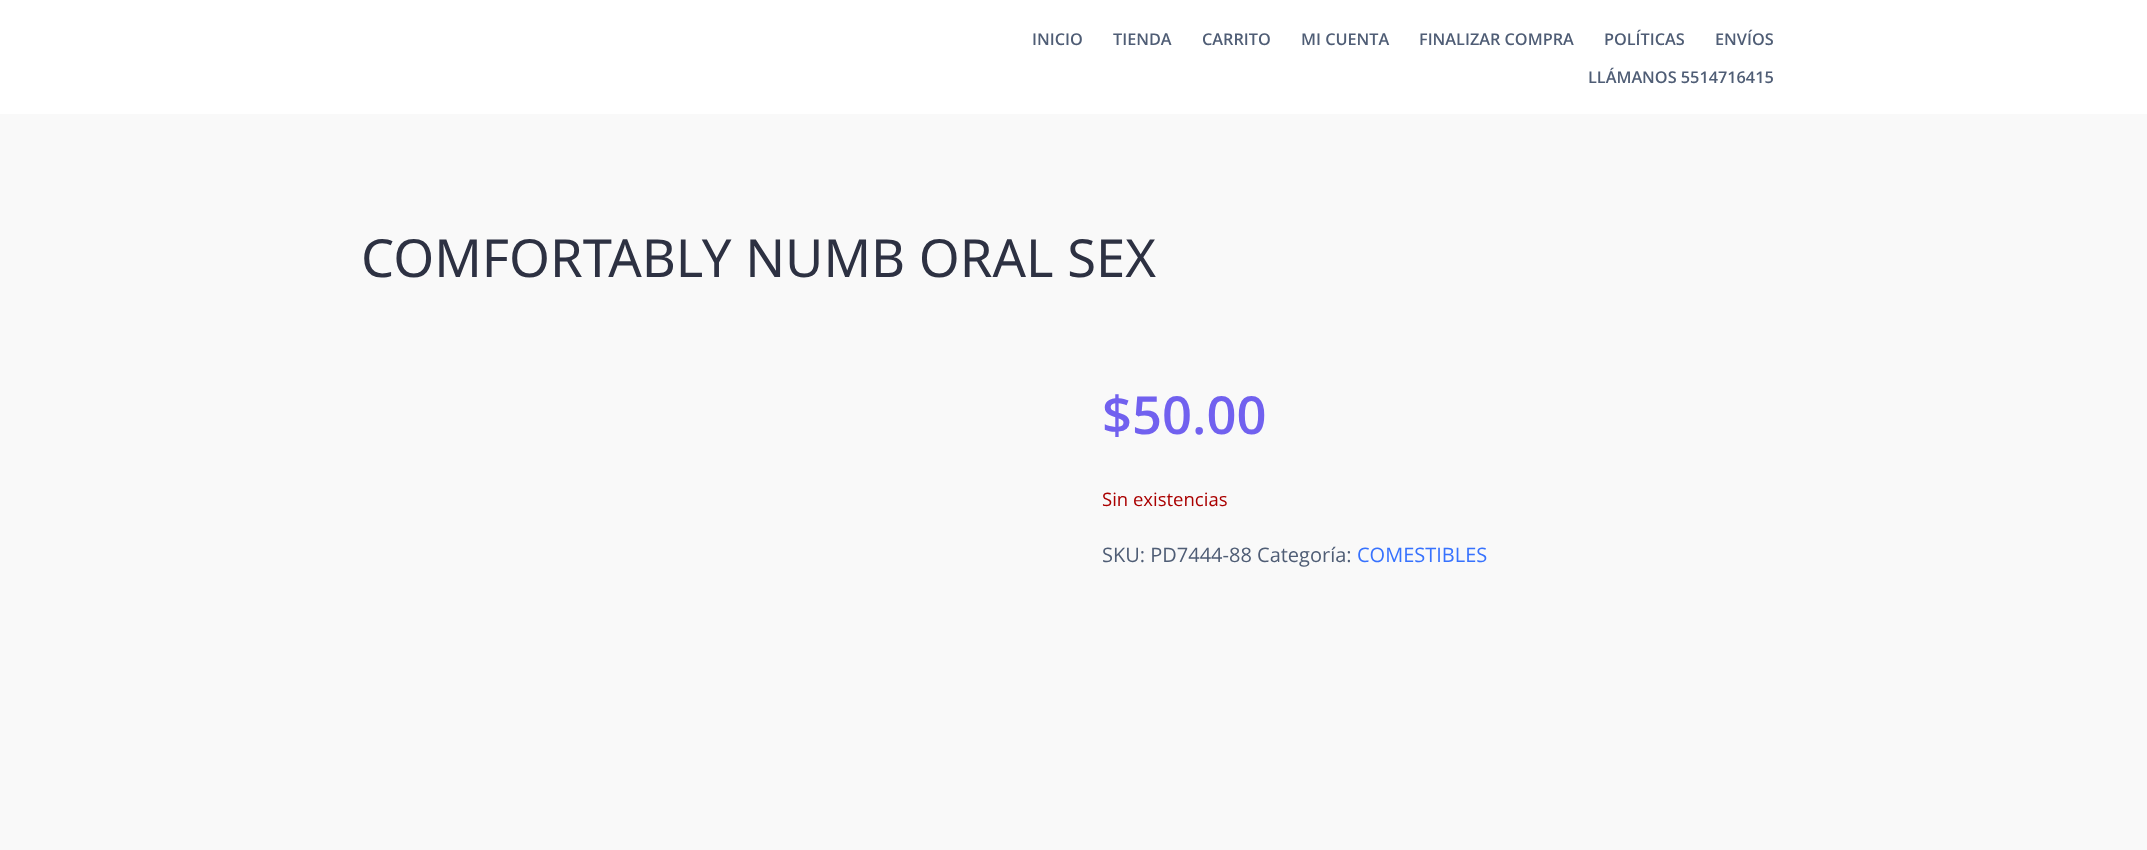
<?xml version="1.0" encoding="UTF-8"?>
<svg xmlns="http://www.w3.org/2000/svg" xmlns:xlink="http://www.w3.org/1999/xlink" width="2147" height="850">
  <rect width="100%" height="100%" fill="#f9f9f9" />
  <rect width="2147" height="114" fill="#ffffff" />
  <text x="1032" y="45" style="font-family: Open Sans; font-size: 16.25px; font-weight: 600; fill: #4f5d75">INICIO</text>
  <text x="1113" y="45" style="font-family: Open Sans; font-size: 16.25px; font-weight: 600; fill: #4f5d75">TIENDA</text>
  <text x="1202" y="45" style="font-family: Open Sans; font-size: 16.25px; font-weight: 600; fill: #4f5d75">CARRITO</text>
  <text x="1301" y="45" style="font-family: Open Sans; font-size: 16.25px; font-weight: 600; fill: #4f5d75">MI CUENTA</text>
  <text x="1419" y="45" style="font-family: Open Sans; font-size: 16.25px; font-weight: 600; fill: #4f5d75">FINALIZAR COMPRA</text>
  <text x="1604" y="45" style="font-family: Open Sans; font-size: 16.25px; font-weight: 600; fill: #4f5d75">POLÍTICAS</text>
  <text x="1715" y="45" style="font-family: Open Sans; font-size: 16.25px; font-weight: 600; fill: #4f5d75">ENVÍOS</text>
  <text x="1588" y="83" style="font-family: Open Sans; font-size: 16.25px; font-weight: 600; fill: #4f5d75">LLÁMANOS 5514716415</text>
  <text x="361" y="277" style="font-family: Noto Sans; font-size: 52.5px; fill: #2d3142">COMFORTABLY NUMB ORAL SEX</text>
  <text x="1102" y="434" style="font-family: Open Sans; font-size: 52.5px; font-weight: 600; fill: #7161ef">$50.00</text>
  <text x="1102" y="506" style="font-family: Open Sans; font-size: 18.5px; fill: #aa0000">Sin existencias</text>
  <text x="1102" y="562" style="font-family: Open Sans; font-size: 20px; fill: #4f5d75">SKU: PD7444-88 Categoría:</text>
  <text x="1357" y="562" style="font-family: Open Sans; font-size: 20px; fill: #3772fe">COMESTIBLES</text>
</svg>
